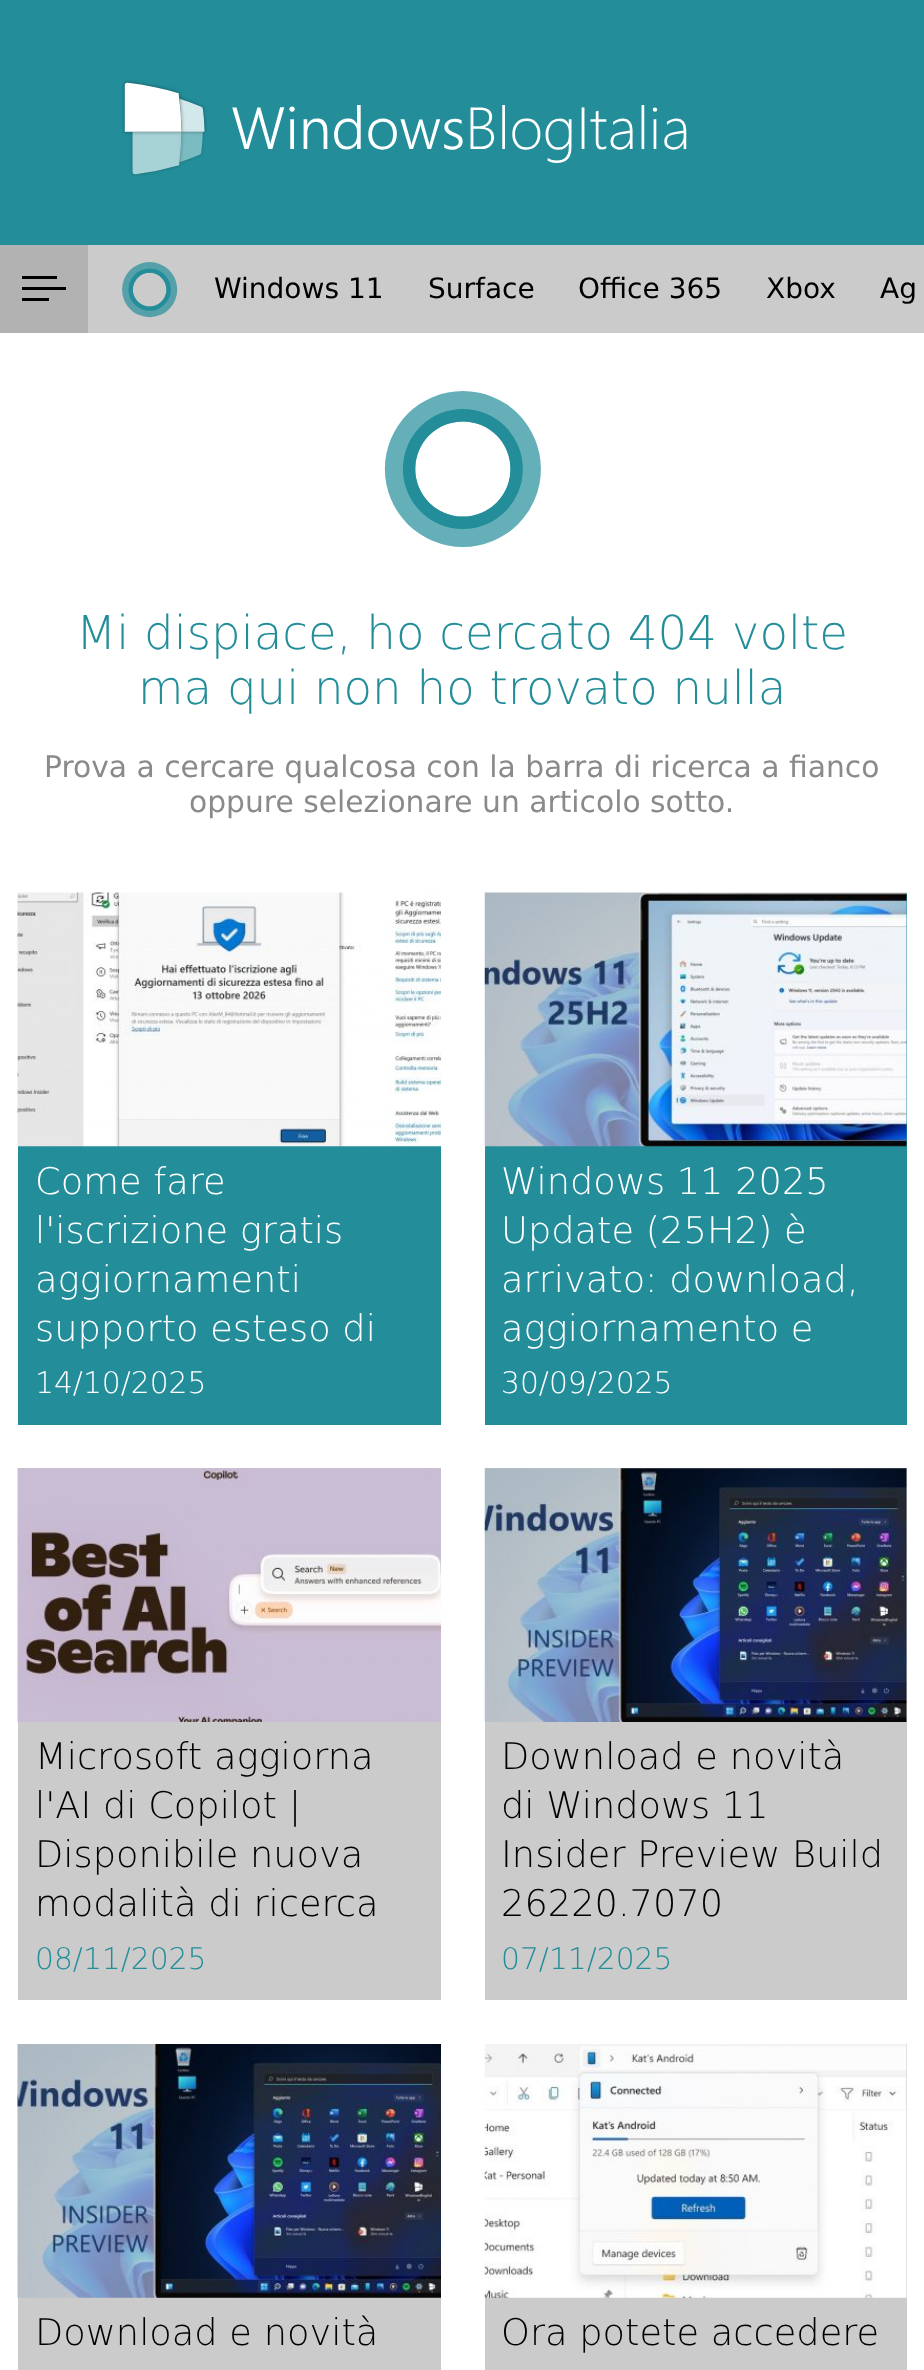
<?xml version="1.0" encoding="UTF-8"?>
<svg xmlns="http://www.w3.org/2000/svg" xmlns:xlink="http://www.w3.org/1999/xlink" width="924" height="2370">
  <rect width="100%" height="100%" fill="#238e9a" />
  <image x="122" y="80" width="565" height="97" xlink:href="image1.png" />
  <rect x="88" y="245" width="836" height="88" fill="#cbcbcb" />
  <rect y="245" width="88" height="88" fill="#b2b2b2" />
  <path d="M 57 276 v 3 h -35 v -3 z m -35 11 h 44 v 3 h -44 z m 0 14 v -3 h 27 v 3 z" fill="#000000" />
  <image x="122" y="262" width="56" height="56" xlink:href="image2.png" />
  <rect y="333" width="924" height="2037" fill="#ffffff" />
  <image x="384" y="391" width="157" height="156" xlink:href="image3.png" />
  <rect x="18" y="1146" width="423" height="279" fill="#238e9a" />
  <image x="17" y="892" width="424" height="255" xlink:href="image4.png" />
  <rect x="485" y="893" width="422" height="532" fill="#238e9a" />
  <image x="484" y="892" width="423" height="255" xlink:href="image5.png" />
  <rect x="18" y="1468" width="423" height="532" fill="#cbcbcb" />
  <image x="17" y="1468" width="424" height="254" xlink:href="image6.png" />
  <rect x="485" y="1468" width="422" height="532" fill="#cbcbcb" />
  <image x="484" y="1468" width="423" height="254" xlink:href="image7.png" />
  <rect x="18" y="2297" width="423" height="73" fill="#cbcbcb" />
  <image x="17" y="2044" width="424" height="254" xlink:href="image8.png" />
  <rect x="485" y="2044" width="422" height="326" fill="#cbcbcb" />
  <image x="484" y="2044" width="423" height="254" xlink:href="image9.png" />
  <text x="214" y="298" style="font-family: DejaVu Sans; font-size: 28px; fill: #000000">Windows 11</text>
  <text x="428" y="298" style="font-family: DejaVu Sans; font-size: 28px; fill: #000000">Surface</text>
  <text x="578" y="298" style="font-family: DejaVu Sans; font-size: 28px; fill: #000000">Office 365</text>
  <text x="766" y="298" style="font-family: DejaVu Sans; font-size: 28px; fill: #000000">Xbox</text>
  <text x="880" y="298" style="font-family: DejaVu Sans; font-size: 28px; fill: #000000">Ag</text>
  <text x="76" y="649" style="font-family: DejaVu Sans; font-size: 46.7px; font-weight: 200; fill: #238e9a">Mi dispiace, ho cercato 404 volte</text>
  <text x="138" y="704" style="font-family: DejaVu Sans; font-size: 46.7px; font-weight: 200; fill: #238e9a">ma qui non ho trovato nulla</text>
  <text x="44" y="777" style="font-family: DejaVu Sans; font-size: 29.75px; fill: #8a8a8a">Prova a cercare qualcosa con la barra di ricerca a fianco</text>
  <text x="189" y="812" style="font-family: DejaVu Sans; font-size: 29.75px; fill: #8a8a8a">oppure selezionare un articolo sotto.</text>
  <text x="35" y="1194" style="font-family: DejaVu Sans; font-size: 36.75px; font-weight: 200; fill: #ffffff">Come fare</text>
  <text x="35" y="1243" style="font-family: DejaVu Sans; font-size: 36.75px; font-weight: 200; fill: #ffffff">l'iscrizione gratis</text>
  <text x="35" y="1292" style="font-family: DejaVu Sans; font-size: 36.75px; font-weight: 200; fill: #ffffff">aggiornamenti</text>
  <text x="35" y="1341" style="font-family: DejaVu Sans; font-size: 36.75px; font-weight: 200; fill: #ffffff">supporto esteso di</text>
  <text x="35" y="1393" style="font-family: DejaVu Sans; font-size: 29.75px; font-weight: 200; fill: #ffffff">14/10/2025</text>
  <text x="501" y="1194" style="font-family: DejaVu Sans; font-size: 36.75px; font-weight: 200; fill: #ffffff">Windows 11 2025</text>
  <text x="501" y="1243" style="font-family: DejaVu Sans; font-size: 36.75px; font-weight: 200; fill: #ffffff">Update (25H2) è</text>
  <text x="501" y="1292" style="font-family: DejaVu Sans; font-size: 36.75px; font-weight: 200; fill: #ffffff">arrivato: download,</text>
  <text x="501" y="1341" style="font-family: DejaVu Sans; font-size: 36.75px; font-weight: 200; fill: #ffffff">aggiornamento e</text>
  <text x="501" y="1393" style="font-family: DejaVu Sans; font-size: 29.75px; font-weight: 200; fill: #ffffff">30/09/2025</text>
  <text x="35" y="1769" style="font-family: DejaVu Sans; font-size: 36.75px; font-weight: 200; fill: #000000">Microsoft aggiorna</text>
  <text x="35" y="1818" style="font-family: DejaVu Sans; font-size: 36.75px; font-weight: 200; fill: #000000">l'AI di Copilot |</text>
  <text x="35" y="1867" style="font-family: DejaVu Sans; font-size: 36.75px; font-weight: 200; fill: #000000">Disponibile nuova</text>
  <text x="35" y="1916" style="font-family: DejaVu Sans; font-size: 36.75px; font-weight: 200; fill: #000000">modalità di ricerca</text>
  <text x="35" y="1969" style="font-family: DejaVu Sans; font-size: 29.75px; font-weight: 200; fill: #238e9a">08/11/2025</text>
  <text x="501" y="1769" style="font-family: DejaVu Sans; font-size: 36.75px; font-weight: 200; fill: #000000">Download e novità</text>
  <text x="501" y="1818" style="font-family: DejaVu Sans; font-size: 36.75px; font-weight: 200; fill: #000000">di Windows 11</text>
  <text x="501" y="1867" style="font-family: DejaVu Sans; font-size: 36.75px; font-weight: 200; fill: #000000">Insider Preview Build</text>
  <text x="501" y="1916" style="font-family: DejaVu Sans; font-size: 36.75px; font-weight: 200; fill: #000000">26220.7070</text>
  <text x="501" y="1969" style="font-family: DejaVu Sans; font-size: 29.75px; font-weight: 200; fill: #238e9a">07/11/2025</text>
  <text x="35" y="2345" style="font-family: DejaVu Sans; font-size: 36.75px; font-weight: 200; fill: #000000">Download e novità</text>
  <text x="501" y="2345" style="font-family: DejaVu Sans; font-size: 36.75px; font-weight: 200; fill: #000000">Ora potete accedere</text>
</svg>
